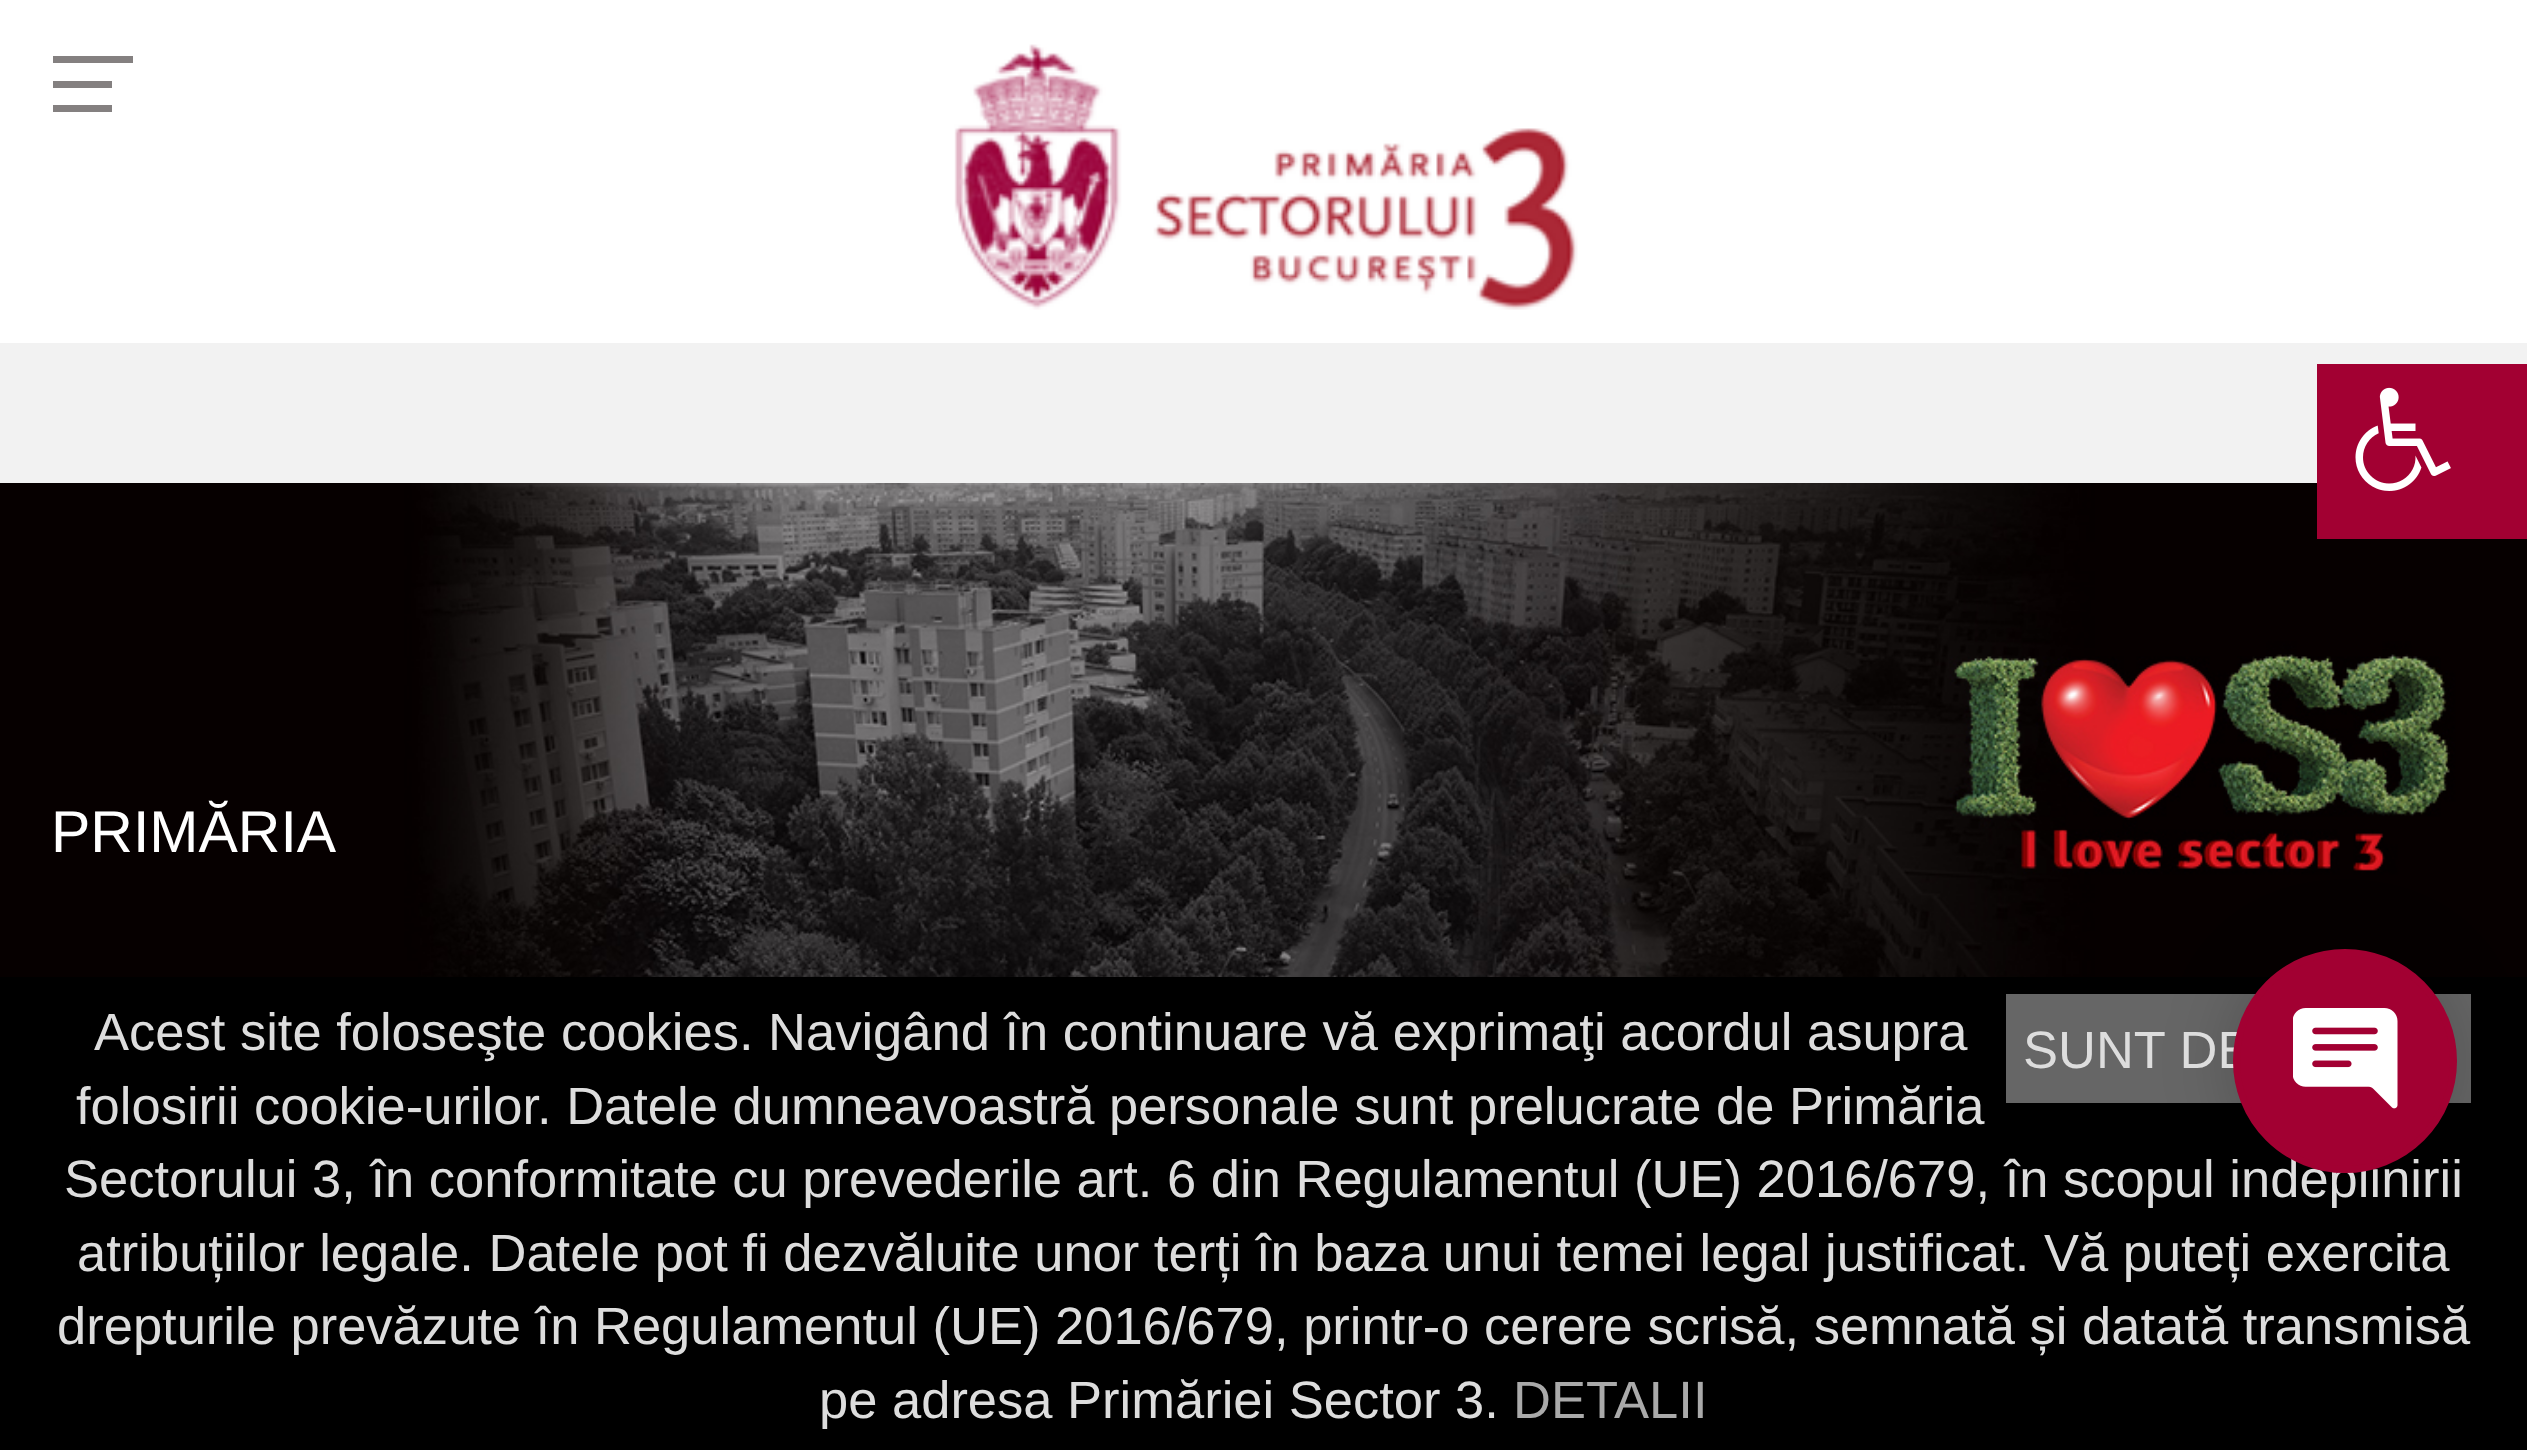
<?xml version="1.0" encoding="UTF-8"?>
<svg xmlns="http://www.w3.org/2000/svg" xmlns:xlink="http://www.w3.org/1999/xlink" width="2527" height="1450">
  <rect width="100%" height="100%" fill="#ffffff" />
  <rect x="53" y="81" width="59" height="7" fill="#848080" />
  <rect x="53" y="56" width="80" height="7" fill="#848080" />
  <rect x="53" y="105" width="59" height="7" fill="#848080" />
  <image x="954" y="44" width="624" height="266" xlink:href="image1.png" />
  <rect y="343" width="2527" height="140" fill="#f2f2f2" />
  <image x="0" y="483" width="2527" height="494" xlink:href="image3.png" />
  <rect x="2317" y="364" width="210" height="175" fill="#a20032" />
  <image x="2355" y="387" width="96" height="104" xlink:href="image2.png" />
  <rect y="977" width="2527" height="473" fill="#000000" />
  <rect x="2006" y="994" width="465" height="109" fill="#666666" />
  <rect x="2233" y="949" width="224" height="224" rx="112" fill="#000000" fill-opacity="0.2" filter="blur(35px)" />
  <text x="51" y="852" style="font-family: Liberation Sans; font-size: 59px; fill: #ffffff">PRIMĂRIA</text>
  <text x="94" y="1050" style="font-family: Liberation Sans; font-size: 52.5px; fill: #dddddd">Acest site foloseşte cookies. Navigând în continuare vă exprimaţi acordul asupra</text>
  <text x="2023" y="1068" style="font-family: Liberation Sans; font-size: 52.5px; fill: #dddddd">SUNT DE</text>
  <text x="76" y="1124" style="font-family: Liberation Sans; font-size: 52.5px; fill: #dddddd">folosirii cookie-urilor. Datele dumneavoastră personale sunt prelucrate de Primăria</text>
  <text x="64" y="1197" style="font-family: Liberation Sans; font-size: 52.5px; fill: #dddddd">Sectorului 3, în conformitate cu prevederile art. 6 din Regulamentul (UE) 2016/679, în scopul indeplinirii</text>
  <circle cx="2345" cy="1061" r="108.5" fill="#a20032" stroke="#a20032" stroke-width="7" />
  <image x="2293" y="1008" width="105" height="101" xlink:href="image4.png" />
  <text x="77" y="1271" style="font-family: Liberation Sans; font-size: 52.5px; fill: #dddddd">atribuțiilor legale. Datele pot fi dezvăluite unor terți în baza unui temei legal justificat. Vă puteți exercita</text>
  <text x="57" y="1344" style="font-family: Liberation Sans; font-size: 52.5px; fill: #dddddd">drepturile prevăzute în Regulamentul (UE) 2016/679, printr-o cerere scrisă, semnată și datată transmisă</text>
  <text x="819" y="1418" style="font-family: Liberation Sans; font-size: 52.5px; fill: #dddddd">pe adresa Primăriei Sector 3.</text>
  <text x="1513" y="1418" style="font-family: Liberation Sans; font-size: 52.5px; fill: #aaaaaa">DETALII</text>
</svg>
